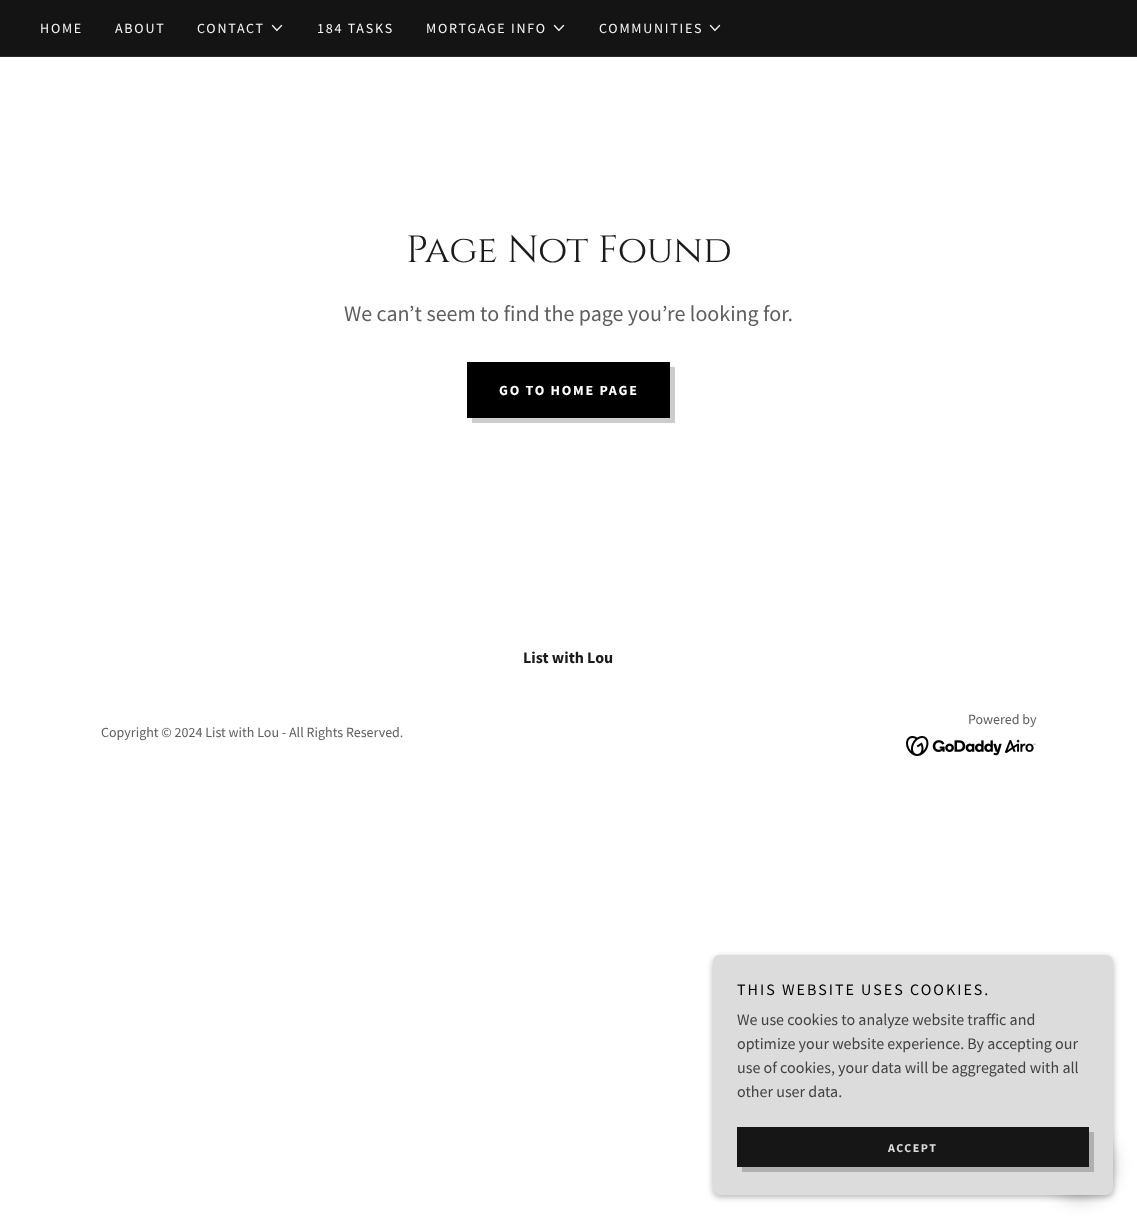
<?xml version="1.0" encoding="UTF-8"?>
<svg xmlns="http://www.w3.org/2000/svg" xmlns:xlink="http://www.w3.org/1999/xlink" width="1137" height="1219">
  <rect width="100%" height="100%" fill="#ffffff" />
  <rect width="1137" height="56" fill="#141414" />
  <image x="271" y="24" width="12" height="8" xlink:href="image1.png" />
  <image x="553" y="24" width="12" height="8" xlink:href="image1.png" />
  <image x="709" y="24" width="12" height="8" xlink:href="image1.png" />
  <rect y="56" width="1137" height="1" fill="#2a2a2a" />
  <rect x="467" y="362" width="203" height="56" fill="#000000" />
  <path d="M 472 418 v 5 h 203 v -56 h -5 v 51 z" fill="#cccccc" />
  <image x="906" y="736" width="130" height="20" xlink:href="image2.png" />
  <rect x="713" y="957" width="400" height="240" rx="7" fill="#000000" fill-opacity="0.3" filter="blur(3px)" />
  <rect x="1048" y="1133" width="65" height="65" rx="32.5" fill="#000000" fill-opacity="0.25" filter="blur(9px)" />
  <rect x="713" y="955" width="400" height="240" rx="7" fill="#dcdcdc" />
  <rect x="737" y="1127" width="352" height="40" fill="#161616" />
  <path d="M 742 1167 v 5 h 352 v -40 h -5 v 35 z" fill="#b0b0b0" />
  <text x="40" y="33" style="font-family: Source Sans Pro; font-size: 14px; letter-spacing: 1.75px; fill: #f7f7f7">HOME</text>
  <text x="115" y="33" style="font-family: Source Sans Pro; font-size: 14px; letter-spacing: 1.75px; fill: #f7f7f7">ABOUT</text>
  <text x="197" y="33" style="font-family: Source Sans Pro; font-size: 14px; letter-spacing: 1.75px; fill: #f7f7f7">CONTACT</text>
  <text x="317" y="33" style="font-family: Source Sans Pro; font-size: 14px; letter-spacing: 1.75px; fill: #f7f7f7">184 TASKS</text>
  <text x="426" y="33" style="font-family: Source Sans Pro; font-size: 14px; letter-spacing: 1.75px; fill: #f7f7f7">MORTGAGE INFO</text>
  <text x="599" y="33" style="font-family: Source Sans Pro; font-size: 14px; letter-spacing: 1.75px; fill: #f7f7f7">COMMUNITIES</text>
  <text x="406" y="262" style="font-family: Cinzel; font-size: 38px; fill: #1b1b1b">Page Not Found</text>
  <text x="344" y="321" style="font-family: Source Sans Pro; font-size: 22px; fill: #5e5e5e">We can’t seem to find the page you’re looking for.</text>
  <text x="499" y="395" style="font-family: Source Sans Pro; font-size: 14px; font-weight: bold; letter-spacing: 1.75px; fill: #ffffff">GO TO HOME PAGE</text>
  <text x="523" y="663" style="font-family: Source Sans Pro; font-size: 16px; font-weight: bold; fill: #1b1b1b">List with Lou</text>
  <text x="968" y="724" style="font-family: Source Sans Pro; font-size: 14px; fill: #5e5e5e">Powered by</text>
  <text x="101" y="737" style="font-family: Source Sans Pro; font-size: 14px; fill: #5e5e5e">Copyright © 2024 List with Lou - All Rights Reserved.</text>
  <text x="737" y="995" style="font-family: Source Sans Pro; font-size: 16px; letter-spacing: 2px; fill: #000000">THIS WEBSITE USES COOKIES.</text>
  <text x="737" y="1025" style="font-family: Source Sans Pro; font-size: 16px; fill: #424242">We use cookies to analyze website traffic and</text>
  <text x="737" y="1049" style="font-family: Source Sans Pro; font-size: 16px; fill: #424242">optimize your website experience. By accepting our</text>
  <text x="737" y="1073" style="font-family: Source Sans Pro; font-size: 16px; fill: #424242">use of cookies, your data will be aggregated with all</text>
  <text x="737" y="1097" style="font-family: Source Sans Pro; font-size: 16px; fill: #424242">other user data.</text>
  <text x="888" y="1152" style="font-family: Source Sans Pro; font-size: 12px; font-weight: bold; letter-spacing: 1.5px; fill: #dbdbdb">ACCEPT</text>
</svg>
